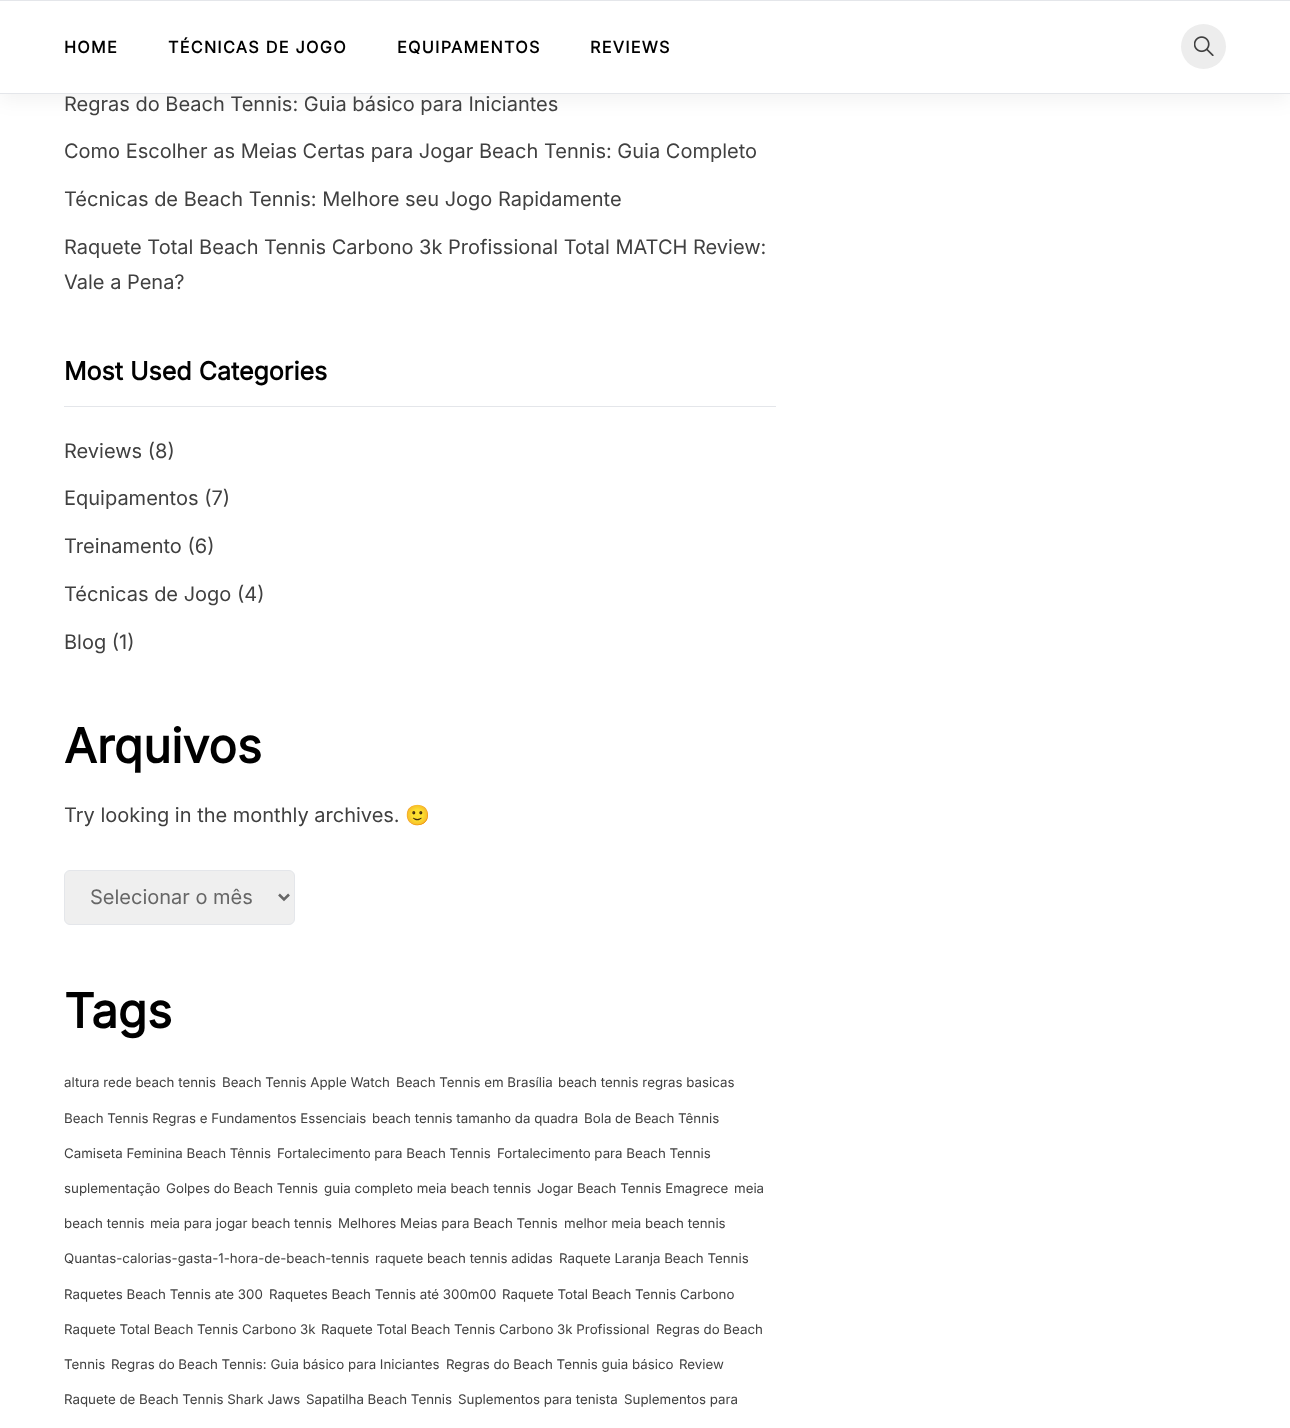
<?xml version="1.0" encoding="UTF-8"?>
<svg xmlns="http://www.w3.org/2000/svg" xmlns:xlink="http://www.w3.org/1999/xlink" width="1290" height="1428">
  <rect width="100%" height="100%" fill="#ffffff" />
  <rect y="6" width="1290" height="94" fill="#000000" fill-opacity="0.05" filter="blur(9.5px)" />
  <rect y="1" width="1290" height="92" fill="#ffffff" />
  <rect width="1290" height="1" fill="#e4e6ea" />
  <rect y="93" width="1290" height="1" fill="#e4e6ea" />
  <circle cx="1203.5" cy="46.5" r="22.5" fill="#ededed" />
  <image x="1194" y="36" width="20" height="20" xlink:href="image1.png" />
  <rect x="64" y="406" width="712" height="1" fill="#e4e6ea" />
  <rect x="64.5" y="870.5" width="230" height="54" rx="5.5" fill="#efefef" stroke="#e4e6ea" />
  <path d="M 279 894.5 l 5 5 l 5 -5" fill="none" stroke="#666666" stroke-width="2.5" />
  <text x="64" y="53" style="font-family: Inter; font-size: 16.25px; font-weight: bold; letter-spacing: 1.25px; fill: #000000">HOME</text>
  <text x="168" y="53" style="font-family: Inter; font-size: 16.25px; font-weight: bold; letter-spacing: 1.25px; fill: #000000">TÉCNICAS DE JOGO</text>
  <text x="397" y="53" style="font-family: Inter; font-size: 16.25px; font-weight: bold; letter-spacing: 1.25px; fill: #000000">EQUIPAMENTOS</text>
  <text x="590" y="53" style="font-family: Inter; font-size: 16.25px; font-weight: bold; letter-spacing: 1.25px; fill: #000000">REVIEWS</text>
  <text x="64" y="111" style="font-family: Inter; font-size: 20px; fill: #404040">Regras do Beach Tennis: Guia básico para Iniciantes</text>
  <text x="64" y="158" style="font-family: Inter; font-size: 20px; fill: #404040">Como Escolher as Meias Certas para Jogar Beach Tennis: Guia Completo</text>
  <text x="64" y="206" style="font-family: Inter; font-size: 20px; fill: #404040">Técnicas de Beach Tennis: Melhore seu Jogo Rapidamente</text>
  <text x="64" y="254" style="font-family: Inter; font-size: 20px; fill: #404040">Raquete Total Beach Tennis Carbono 3k Profissional Total MATCH Review:</text>
  <text x="64" y="289" style="font-family: Inter; font-size: 20px; fill: #404040">Vale a Pena?</text>
  <text x="64" y="380" style="font-family: Inter; font-size: 25px; font-weight: bold; fill: #000000">Most Used Categories</text>
  <text x="64" y="458" style="font-family: Inter; font-size: 20px; fill: #404040">Reviews (8)</text>
  <text x="64" y="505" style="font-family: Inter; font-size: 20px; fill: #404040">Equipamentos (7)</text>
  <text x="64" y="553" style="font-family: Inter; font-size: 20px; fill: #404040">Treinamento (6)</text>
  <text x="64" y="601" style="font-family: Inter; font-size: 20px; fill: #404040">Técnicas de Jogo (4)</text>
  <text x="64" y="649" style="font-family: Inter; font-size: 20px; fill: #404040">Blog (1)</text>
  <text x="64" y="763" style="font-family: Inter; font-size: 47.5px; font-weight: bold; fill: #000000">Arquivos</text>
  <text x="64" y="822" style="font-family: Inter; font-size: 20px; fill: #404040">Try looking in the monthly archives.</text>
  <text x="405" y="822" style="font-family: Noto Color Emoji; font-size: 20px; fill: #404040">🙂</text>
  <text x="90" y="904" style="font-family: Inter; font-size: 20px; fill: #666666">Selecionar o mês</text>
  <text x="64" y="1028" style="font-family: Inter; font-size: 47.5px; font-weight: bold; fill: #000000">Tags</text>
  <text x="64" y="1087" style="font-family: Inter; font-size: 13.3px; fill: #404040">altura rede beach tennis</text>
  <text x="222" y="1087" style="font-family: Inter; font-size: 13.3px; fill: #404040">Beach Tennis Apple Watch</text>
  <text x="396" y="1087" style="font-family: Inter; font-size: 13.3px; fill: #404040">Beach Tennis em Brasília</text>
  <text x="558" y="1087" style="font-family: Inter; font-size: 13.3px; fill: #404040">beach tennis regras basicas</text>
  <text x="64" y="1123" style="font-family: Inter; font-size: 13.3px; fill: #404040">Beach Tennis Regras e Fundamentos Essenciais</text>
  <text x="372" y="1123" style="font-family: Inter; font-size: 13.3px; fill: #404040">beach tennis tamanho da quadra</text>
  <text x="584" y="1123" style="font-family: Inter; font-size: 13.3px; fill: #404040">Bola de Beach Tênnis</text>
  <text x="64" y="1158" style="font-family: Inter; font-size: 13.3px; fill: #404040">Camiseta Feminina Beach Tênnis</text>
  <text x="277" y="1158" style="font-family: Inter; font-size: 13.3px; fill: #404040">Fortalecimento para Beach Tennis</text>
  <text x="497" y="1158" style="font-family: Inter; font-size: 13.3px; fill: #404040">Fortalecimento para Beach Tennis</text>
  <text x="64" y="1193" style="font-family: Inter; font-size: 13.3px; fill: #404040">suplementação</text>
  <text x="166" y="1193" style="font-family: Inter; font-size: 13.3px; fill: #404040">Golpes do Beach Tennis</text>
  <text x="324" y="1193" style="font-family: Inter; font-size: 13.3px; fill: #404040">guia completo meia beach tennis</text>
  <text x="537" y="1193" style="font-family: Inter; font-size: 13.3px; fill: #404040">Jogar Beach Tennis Emagrece</text>
  <text x="734" y="1193" style="font-family: Inter; font-size: 13.3px; fill: #404040">meia</text>
  <text x="64" y="1228" style="font-family: Inter; font-size: 13.3px; fill: #404040">beach tennis</text>
  <text x="150" y="1228" style="font-family: Inter; font-size: 13.3px; fill: #404040">meia para jogar beach tennis</text>
  <text x="338" y="1228" style="font-family: Inter; font-size: 13.3px; fill: #404040">Melhores Meias para Beach Tennis</text>
  <text x="564" y="1228" style="font-family: Inter; font-size: 13.3px; fill: #404040">melhor meia beach tennis</text>
  <text x="64" y="1263" style="font-family: Inter; font-size: 13.3px; fill: #404040">Quantas-calorias-gasta-1-hora-de-beach-tennis</text>
  <text x="375" y="1263" style="font-family: Inter; font-size: 13.3px; fill: #404040">raquete beach tennis adidas</text>
  <text x="559" y="1263" style="font-family: Inter; font-size: 13.3px; fill: #404040">Raquete Laranja Beach Tennis</text>
  <text x="64" y="1299" style="font-family: Inter; font-size: 13.3px; fill: #404040">Raquetes Beach Tennis ate 300</text>
  <text x="269" y="1299" style="font-family: Inter; font-size: 13.3px; fill: #404040">Raquetes Beach Tennis até 300m00</text>
  <text x="502" y="1299" style="font-family: Inter; font-size: 13.3px; fill: #404040">Raquete Total Beach Tennis Carbono</text>
  <text x="64" y="1334" style="font-family: Inter; font-size: 13.3px; fill: #404040">Raquete Total Beach Tennis Carbono 3k</text>
  <text x="321" y="1334" style="font-family: Inter; font-size: 13.3px; fill: #404040">Raquete Total Beach Tennis Carbono 3k Profissional</text>
  <text x="656" y="1334" style="font-family: Inter; font-size: 13.3px; fill: #404040">Regras do Beach</text>
  <text x="64" y="1369" style="font-family: Inter; font-size: 13.3px; fill: #404040">Tennis</text>
  <text x="111" y="1369" style="font-family: Inter; font-size: 13.3px; fill: #404040">Regras do Beach Tennis: Guia básico para Iniciantes</text>
  <text x="446" y="1369" style="font-family: Inter; font-size: 13.3px; fill: #404040">Regras do Beach Tennis guia básico</text>
  <text x="679" y="1369" style="font-family: Inter; font-size: 13.3px; fill: #404040">Review</text>
  <text x="64" y="1404" style="font-family: Inter; font-size: 13.3px; fill: #404040">Raquete de Beach Tennis Shark Jaws</text>
  <text x="306" y="1404" style="font-family: Inter; font-size: 13.3px; fill: #404040">Sapatilha Beach Tennis</text>
  <text x="458" y="1404" style="font-family: Inter; font-size: 13.3px; fill: #404040">Suplementos para tenista</text>
  <text x="624" y="1404" style="font-family: Inter; font-size: 13.3px; fill: #404040">Suplementos para</text>
</svg>
